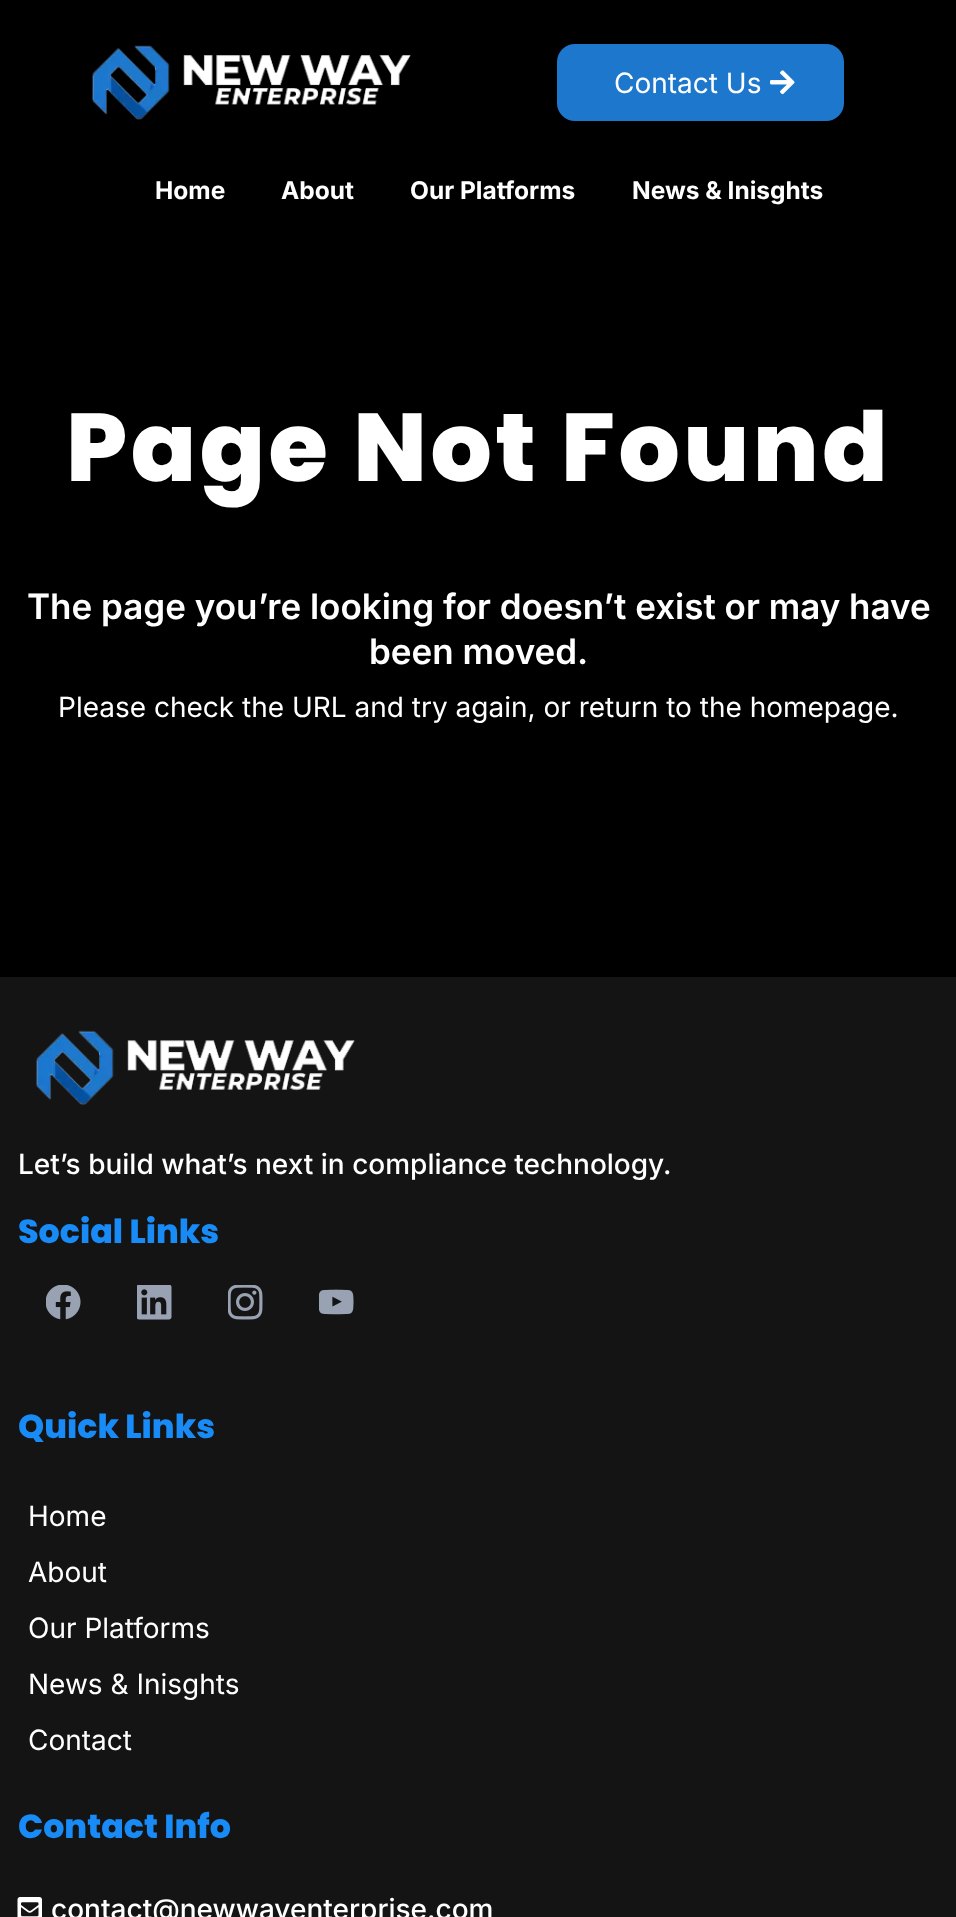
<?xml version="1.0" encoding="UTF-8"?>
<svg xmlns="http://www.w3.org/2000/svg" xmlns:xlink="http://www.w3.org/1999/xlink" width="956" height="1917">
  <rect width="100%" height="100%" fill="#000000" />
  <image x="92" y="45" width="319" height="75" xlink:href="image1.png" />
  <rect x="557" y="44" width="287" height="77" rx="18" fill="#1d78cd" />
  <image x="770" y="70" width="25" height="25" xlink:href="image2.png" />
  <rect y="977" width="956" height="940" fill="#141414" />
  <image x="36" y="1030" width="319" height="75" xlink:href="image3.png" />
  <image x="46" y="1285" width="35" height="35" xlink:href="image4.png" />
  <image x="137" y="1285" width="35" height="35" xlink:href="image5.png" />
  <image x="228" y="1285" width="35" height="35" xlink:href="image6.png" />
  <image x="319" y="1289" width="35" height="26" xlink:href="image7.png" />
  <image x="17" y="1897" width="25" height="20" xlink:href="image8.png" />
  <text x="614" y="93" style="font-family: Inter; font-size: 28px; fill: #ffffff">Contact Us</text>
  <text x="155" y="199" style="font-family: Inter; font-size: 24.5px; font-weight: bold; fill: #ffffff">Home</text>
  <text x="281" y="199" style="font-family: Inter; font-size: 24.5px; font-weight: bold; fill: #ffffff">About</text>
  <text x="410" y="199" style="font-family: Inter; font-size: 24.5px; font-weight: bold; fill: #ffffff">Our Platforms</text>
  <text x="632" y="199" style="font-family: Inter; font-size: 24.5px; font-weight: bold; fill: #ffffff">News &amp; Inisghts</text>
  <text x="66" y="481" style="font-family: Poppins; font-size: 96.25px; font-weight: 800; letter-spacing: 3.5px; fill: #ffffff">Page Not Found</text>
  <text x="27" y="619" style="font-family: Inter; font-size: 35px; font-weight: 600; fill: #ffffff">The page you’re looking for doesn’t exist or may have</text>
  <text x="369" y="664" style="font-family: Inter; font-size: 35px; font-weight: 600; fill: #ffffff">been moved.</text>
  <text x="58" y="717" style="font-family: Inter; font-size: 28px; fill: #ffffff">Please check the URL and try again, or return to the homepage.</text>
  <text x="18" y="1174" style="font-family: Inter; font-size: 28px; font-weight: 500; fill: #ffffff">Let’s build what’s next in compliance technology.</text>
  <text x="18" y="1243" style="font-family: Poppins; font-size: 33.25px; font-weight: 800; fill: #188bf6">Social Links</text>
  <text x="18" y="1438" style="font-family: Poppins; font-size: 33.25px; font-weight: 800; fill: #188bf6">Quick Links</text>
  <text x="28" y="1526" style="font-family: Inter; font-size: 28px; fill: #ffffff">Home</text>
  <text x="28" y="1582" style="font-family: Inter; font-size: 28px; fill: #ffffff">About</text>
  <text x="28" y="1638" style="font-family: Inter; font-size: 28px; fill: #ffffff">Our Platforms</text>
  <text x="28" y="1694" style="font-family: Inter; font-size: 28px; fill: #ffffff">News &amp; Inisghts</text>
  <text x="28" y="1750" style="font-family: Inter; font-size: 28px; fill: #ffffff">Contact</text>
  <text x="18" y="1838" style="font-family: Poppins; font-size: 33.25px; font-weight: 800; fill: #188bf6">Contact Info</text>
  <text x="51" y="1919" style="font-family: Inter; font-size: 28px; font-weight: 500; fill: #ffffff">contact@newwayenterprise.com</text>
</svg>
